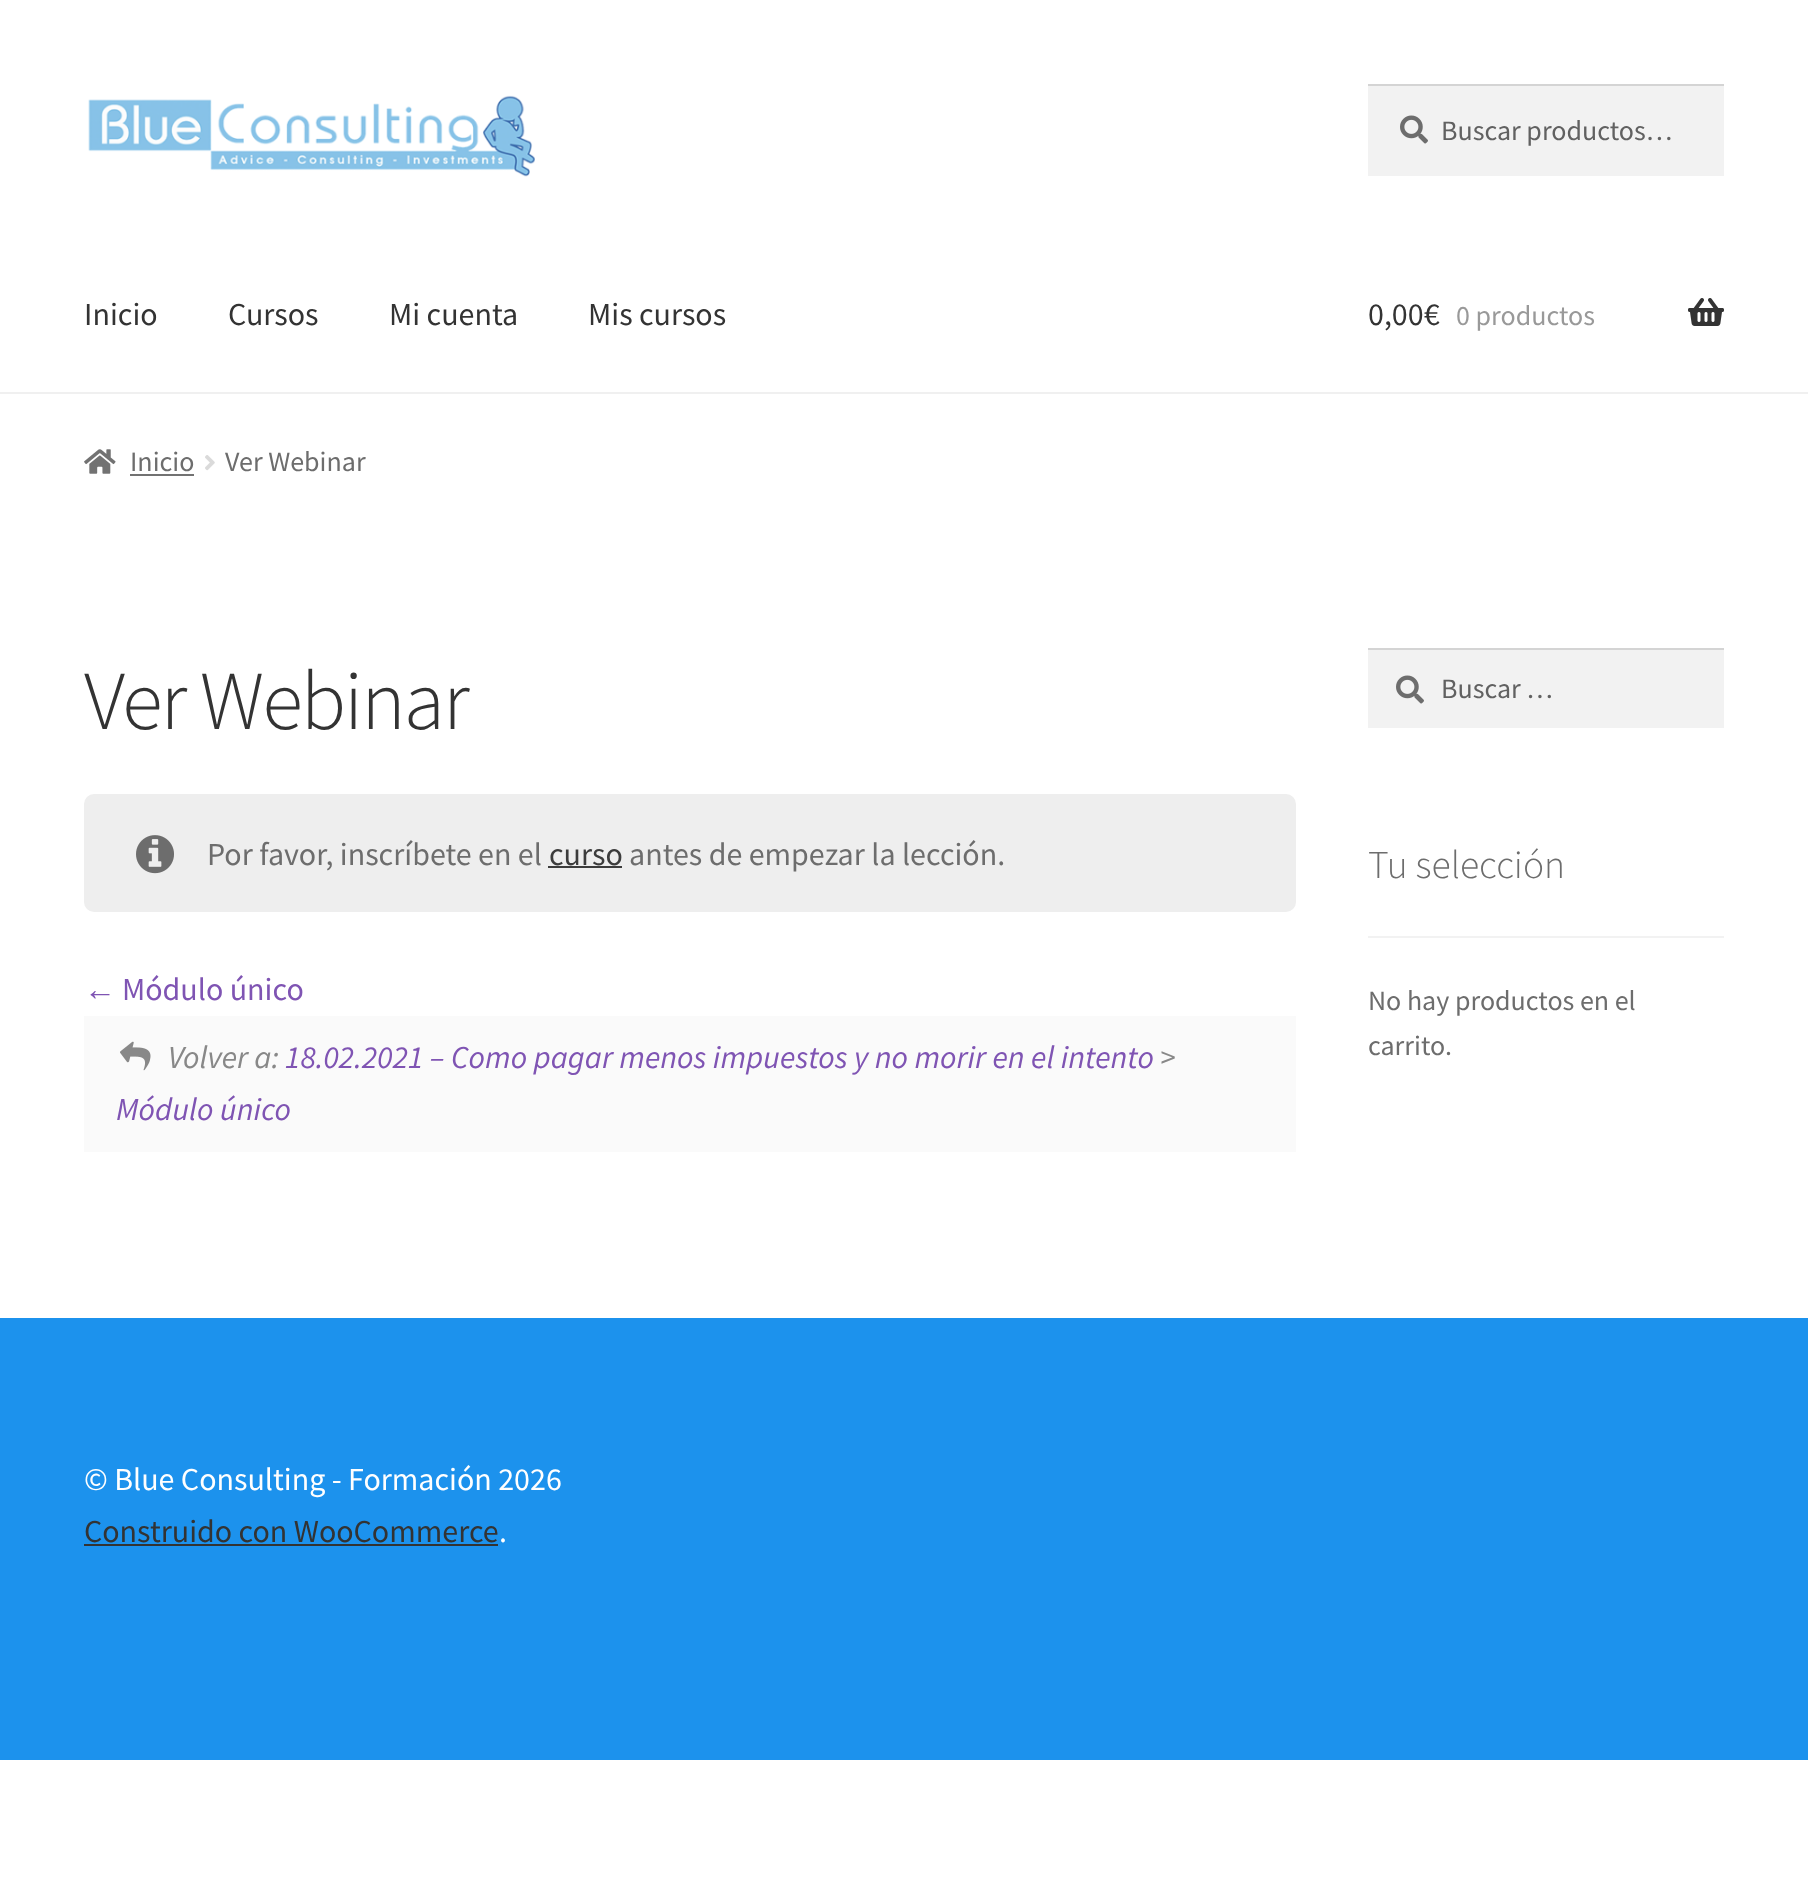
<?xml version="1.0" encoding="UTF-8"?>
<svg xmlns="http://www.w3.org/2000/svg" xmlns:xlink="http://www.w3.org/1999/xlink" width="1808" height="1884">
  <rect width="100%" height="100%" fill="#ffffff" />
  <rect y="392" width="1808" height="2" fill="#f0f0f0" />
  <image x="88" y="95" width="447" height="82" xlink:href="image1.png" />
  <rect x="1368" y="86" width="356" height="90" fill="#f2f2f2" />
  <image x="1400" y="115" width="28" height="29" xlink:href="image2.png" />
  <rect x="1368" y="84" width="356" height="2" fill="#d4d4d4" />
  <image x="1688" y="298" width="36" height="28" xlink:href="image3.png" />
  <image x="84" y="449" width="32" height="25" xlink:href="image4.png" />
  <rect x="130" y="474" width="64" height="2" fill="#727272" />
  <image x="205" y="455" width="10" height="16" xlink:href="image5.png" />
  <rect x="84" y="794" width="1212" height="118" rx="10" fill="#eeeeee" />
  <image x="136" y="835" width="38" height="39" xlink:href="image6.png" />
  <rect x="548" y="866" width="74" height="2" fill="#3c3c3c" />
  <rect x="84" y="1016" width="1212" height="136" fill="#fafafa" />
  <image x="120" y="1041" width="31" height="30" xlink:href="image7.png" />
  <rect x="1368" y="650" width="356" height="78" fill="#f2f2f2" />
  <image x="1396" y="675" width="28" height="29" xlink:href="image2.png" />
  <rect x="1368" y="648" width="356" height="2" fill="#d4d4d4" />
  <rect x="1368" y="936" width="356" height="2" fill="#f2f2f2" />
  <rect y="1318" width="1808" height="442" fill="#1c92ed" />
  <rect x="84" y="1544" width="414" height="2" fill="#333333" />
  <text x="1441" y="140" style="font-family: Source Sans Pro; font-size: 28px; fill: #616161">Buscar productos…</text>
  <text x="84" y="325" style="font-family: Source Sans Pro; font-size: 32px; fill: #333333">Inicio</text>
  <text x="228" y="325" style="font-family: Source Sans Pro; font-size: 32px; fill: #333333">Cursos</text>
  <text x="389" y="325" style="font-family: Source Sans Pro; font-size: 32px; fill: #333333">Mi cuenta</text>
  <text x="588" y="325" style="font-family: Source Sans Pro; font-size: 32px; fill: #333333">Mis cursos</text>
  <text x="1368" y="325" style="font-family: Source Sans Pro; font-size: 32px; fill: #333333">0,00€</text>
  <text x="1456" y="325" style="font-family: Source Sans Pro; font-size: 28px; fill: #999999">0 productos</text>
  <text x="130" y="471" style="font-family: Source Sans Pro; font-size: 28px; fill: #6d6d6d">Inicio</text>
  <text x="225" y="471" style="font-family: Source Sans Pro; font-size: 28px; fill: #6d6d6d">Ver Webinar</text>
  <text x="84" y="729" style="font-family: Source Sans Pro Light; font-size: 83.75px; font-weight: 300; letter-spacing: -2px; fill: #333333">Ver Webinar</text>
  <text x="207" y="865" style="font-family: Source Sans Pro; font-size: 32px; fill: #6d6d6d">Por favor, inscríbete en el</text>
  <text x="549" y="865" style="font-family: Source Sans Pro; font-size: 32px; fill: #3c3c3c">curso</text>
  <text x="629" y="865" style="font-family: Source Sans Pro; font-size: 32px; fill: #6d6d6d">antes de empezar la lección.</text>
  <text x="84" y="1000" style="font-family: Liberation Sans; font-size: 32px; fill: #7f54b3">←</text>
  <text x="122" y="1000" style="font-family: Source Sans Pro; font-size: 32px; fill: #7f54b3">Módulo único</text>
  <text x="168" y="1068" style="font-family: Source Sans Pro; font-size: 32px; font-style: italic; fill: #888888">Volver a:</text>
  <text x="285" y="1068" style="font-family: Source Sans Pro; font-size: 32px; font-style: italic; fill: #7f54b3">18.02.2021 – Como pagar menos impuestos y no morir en el intento</text>
  <text x="1160" y="1068" style="font-family: Source Sans Pro; font-size: 32px; font-style: italic; fill: #888888">&gt;</text>
  <text x="116" y="1120" style="font-family: Source Sans Pro; font-size: 32px; font-style: italic; fill: #7f54b3">Módulo único</text>
  <text x="1441" y="698" style="font-family: Source Sans Pro; font-size: 28px; fill: #616161">Buscar …</text>
  <text x="1368" y="878" style="font-family: Source Sans Pro Light; font-size: 39.5px; font-weight: 300; fill: #6d6d6d">Tu selección</text>
  <text x="1368" y="1010" style="font-family: Source Sans Pro; font-size: 28px; fill: #6d6d6d">No hay productos en el</text>
  <text x="1368" y="1055" style="font-family: Source Sans Pro; font-size: 28px; fill: #6d6d6d">carrito.</text>
  <text x="84" y="1490" style="font-family: Source Sans Pro; font-size: 32px; fill: #ffffff">© Blue Consulting - Formación 2026</text>
  <text x="84" y="1542" style="font-family: Source Sans Pro; font-size: 32px; fill: #333333">Construido con WooCommerce</text>
  <text x="499" y="1542" style="font-family: Source Sans Pro; font-size: 32px; fill: #ffffff">.</text>
</svg>
